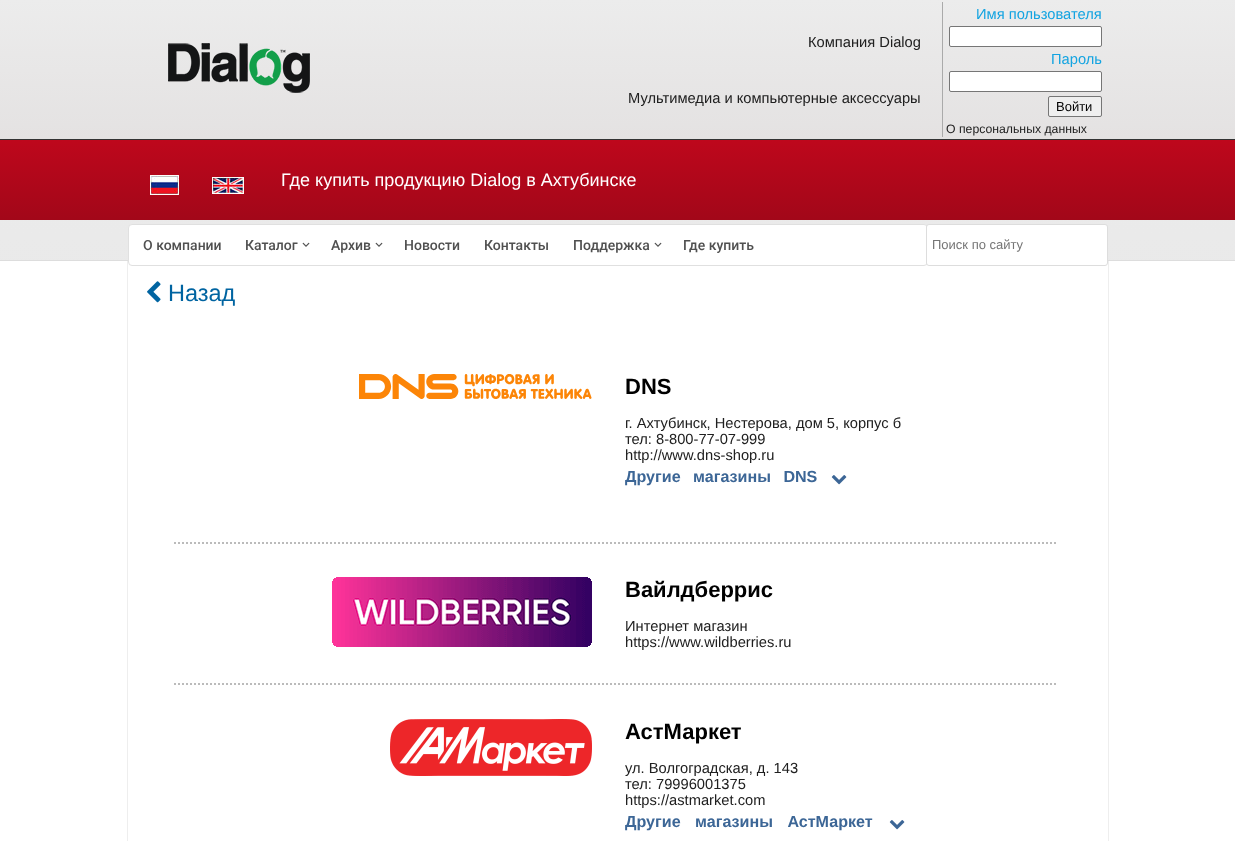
<?xml version="1.0" encoding="UTF-8"?>
<svg xmlns="http://www.w3.org/2000/svg" xmlns:xlink="http://www.w3.org/1999/xlink" width="1235" height="841">
  <defs>
    <linearGradient id="g1" gradientUnits="userSpaceOnUse" x1="617" y1="0" x2="618" y2="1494"><stop offset="0" stop-color="#ededed" /><stop offset="1" stop-color="#dadada" /></linearGradient>
    <linearGradient id="g2" gradientUnits="userSpaceOnUse" x1="618" y1="0" x2="618" y2="139"><stop offset="0" stop-color="#ececec" /><stop offset="1" stop-color="#e4e2e2" /></linearGradient>
    <linearGradient id="g3" gradientUnits="userSpaceOnUse" x1="618" y1="140" x2="618" y2="220"><stop offset="0" stop-color="#be071c" /><stop offset="1" stop-color="#a20719" /></linearGradient>
  </defs>
  <rect width="100%" height="100%" fill="#ffffff" />
  <rect y="220" width="1235" height="40" fill="url(#g1)" />
  <rect width="1235" height="139" fill="url(#g2)" />
  <image x="168" y="43" width="142" height="50" xlink:href="image1.png" />
  <rect x="942" y="2" width="1" height="135" fill="#aaaaaa" />
  <rect x="949.5" y="26.5" width="152" height="20" rx="1.5" fill="#ffffff" stroke="#767676" />
  <rect x="949.5" y="71.5" width="152" height="20" rx="1.5" fill="#ffffff" stroke="#767676" />
  <rect x="1048.5" y="96.5" width="53" height="20" rx="1.5" fill="#efefef" stroke="#767676" />
  <rect y="139" width="1235" height="1" fill="#333333" />
  <rect y="140" width="1235" height="80" fill="url(#g3)" />
  <image x="150" y="175" width="29" height="20" xlink:href="image2.png" />
  <image x="212" y="177" width="32" height="17" xlink:href="image3.png" />
  <rect y="260" width="1235" height="1" fill="#dddddd" />
  <rect x="128.5" y="224.5" width="799" height="41" rx="3.5" fill="#ffffff" stroke="#e0e0e0" />
  <image x="302" y="242" width="8" height="5" xlink:href="image4.png" />
  <image x="375" y="242" width="8" height="5" xlink:href="image4.png" />
  <image x="654" y="242" width="8" height="5" xlink:href="image4.png" />
  <rect x="926.5" y="224.5" width="181" height="41" rx="2.5" fill="#ffffff" stroke="#dddddd" />
  <rect x="1108" y="261" width="1" height="580" fill="#eeeeee" />
  <rect x="127" y="261" width="1" height="580" fill="#eeeeee" />
  <image x="147" y="281" width="14" height="22" xlink:href="image5.png" />
  <image x="359" y="374" width="233" height="25" xlink:href="image6.png" />
  <image x="831" y="475" width="16" height="10" xlink:href="image7.png" />
  <path d="M 174 543 h 883" fill="none" stroke="#bbbbbb" stroke-width="2" stroke-dasharray="2 2" />
  <image x="332" y="577" width="260" height="70" xlink:href="image8.png" />
  <path d="M 174 684 h 883" fill="none" stroke="#bbbbbb" stroke-width="2" stroke-dasharray="2 2" />
  <image x="390" y="719" width="202" height="57" xlink:href="image9.png" />
  <image x="889" y="820" width="16" height="10" xlink:href="image7.png" />
  <text x="808" y="47" style="font-family: Liberation Sans; font-size: 14.7px; fill: #202020">Компания Dialog</text>
  <text x="628" y="103" style="font-family: Liberation Sans; font-size: 14.7px; fill: #202020">Мультимедиа и компьютерные аксессуары</text>
  <text x="976" y="19" style="font-family: Liberation Sans; font-size: 14.7px; fill: #14a4e1">Имя пользователя</text>
  <text x="1051" y="64" style="font-family: Liberation Sans; font-size: 14.7px; fill: #14a4e1">Пароль</text>
  <text x="1056" y="111" style="font-family: Liberation Sans; font-size: 13px; fill: #000000">Войти</text>
  <text x="946" y="133" style="font-family: Liberation Sans; font-size: 12.25px; fill: #202020">О персональных данных</text>
  <text x="281" y="186" style="font-family: Liberation Sans; font-size: 18px; fill: #ffffff">Где купить продукцию Dialog в Ахтубинске</text>
  <text x="143" y="250" style="font-family: Roboto; font-size: 14px; font-weight: 500; fill: #505050">О компании</text>
  <text x="245" y="250" style="font-family: Roboto; font-size: 14px; font-weight: 500; fill: #505050">Каталог</text>
  <text x="331" y="250" style="font-family: Roboto; font-size: 14px; font-weight: 500; fill: #505050">Архив</text>
  <text x="404" y="250" style="font-family: Roboto; font-size: 14px; font-weight: 500; fill: #505050">Новости</text>
  <text x="484" y="250" style="font-family: Roboto; font-size: 14px; font-weight: 500; fill: #505050">Контакты</text>
  <text x="573" y="250" style="font-family: Roboto; font-size: 14px; font-weight: 500; fill: #505050">Поддержка</text>
  <text x="683" y="250" style="font-family: Roboto; font-size: 14px; font-weight: 500; fill: #505050">Где купить</text>
  <text x="932" y="249" style="font-family: Liberation Sans; font-size: 13px; fill: #757575">Поиск по сайту</text>
  <text x="168" y="301" style="font-family: Liberation Sans; font-size: 23.5px; fill: #0064a1">Назад</text>
  <text x="625" y="394" style="font-family: Liberation Sans; font-size: 22px; font-weight: bold; fill: #000000">DNS</text>
  <text x="625" y="428" style="font-family: Liberation Sans; font-size: 14.7px; fill: #202020">г. Ахтубинск, Нестерова, дом 5, корпус б</text>
  <text x="625" y="444" style="font-family: Liberation Sans; font-size: 14.7px; fill: #202020">тел: 8-800-77-07-999</text>
  <text x="625" y="460" style="font-family: Liberation Sans; font-size: 14.7px; fill: #202020">http://www.dns-shop.ru</text>
  <text x="625" y="482" word-spacing="8" style="font-family: Liberation Sans; font-size: 16.1px; font-weight: bold; fill: #3c6696">Другие магазины DNS</text>
  <text x="625" y="597" style="font-family: Liberation Sans; font-size: 22px; font-weight: bold; fill: #000000">Вайлдберрис</text>
  <text x="625" y="631" style="font-family: Liberation Sans; font-size: 14.7px; fill: #202020">Интернет магазин</text>
  <text x="625" y="647" style="font-family: Liberation Sans; font-size: 14.7px; fill: #202020">https://www.wildberries.ru</text>
  <text x="625" y="739" style="font-family: Liberation Sans; font-size: 22px; font-weight: bold; fill: #000000">АстМаркет</text>
  <text x="625" y="773" style="font-family: Liberation Sans; font-size: 14.7px; fill: #202020">ул. Волгоградская, д. 143</text>
  <text x="625" y="789" style="font-family: Liberation Sans; font-size: 14.7px; fill: #202020">тел: 79996001375</text>
  <text x="625" y="805" style="font-family: Liberation Sans; font-size: 14.7px; fill: #202020">https://astmarket.com</text>
  <text x="625" y="827" word-spacing="10" style="font-family: Liberation Sans; font-size: 16.1px; font-weight: bold; fill: #3c6696">Другие магазины АстМаркет</text>
</svg>
